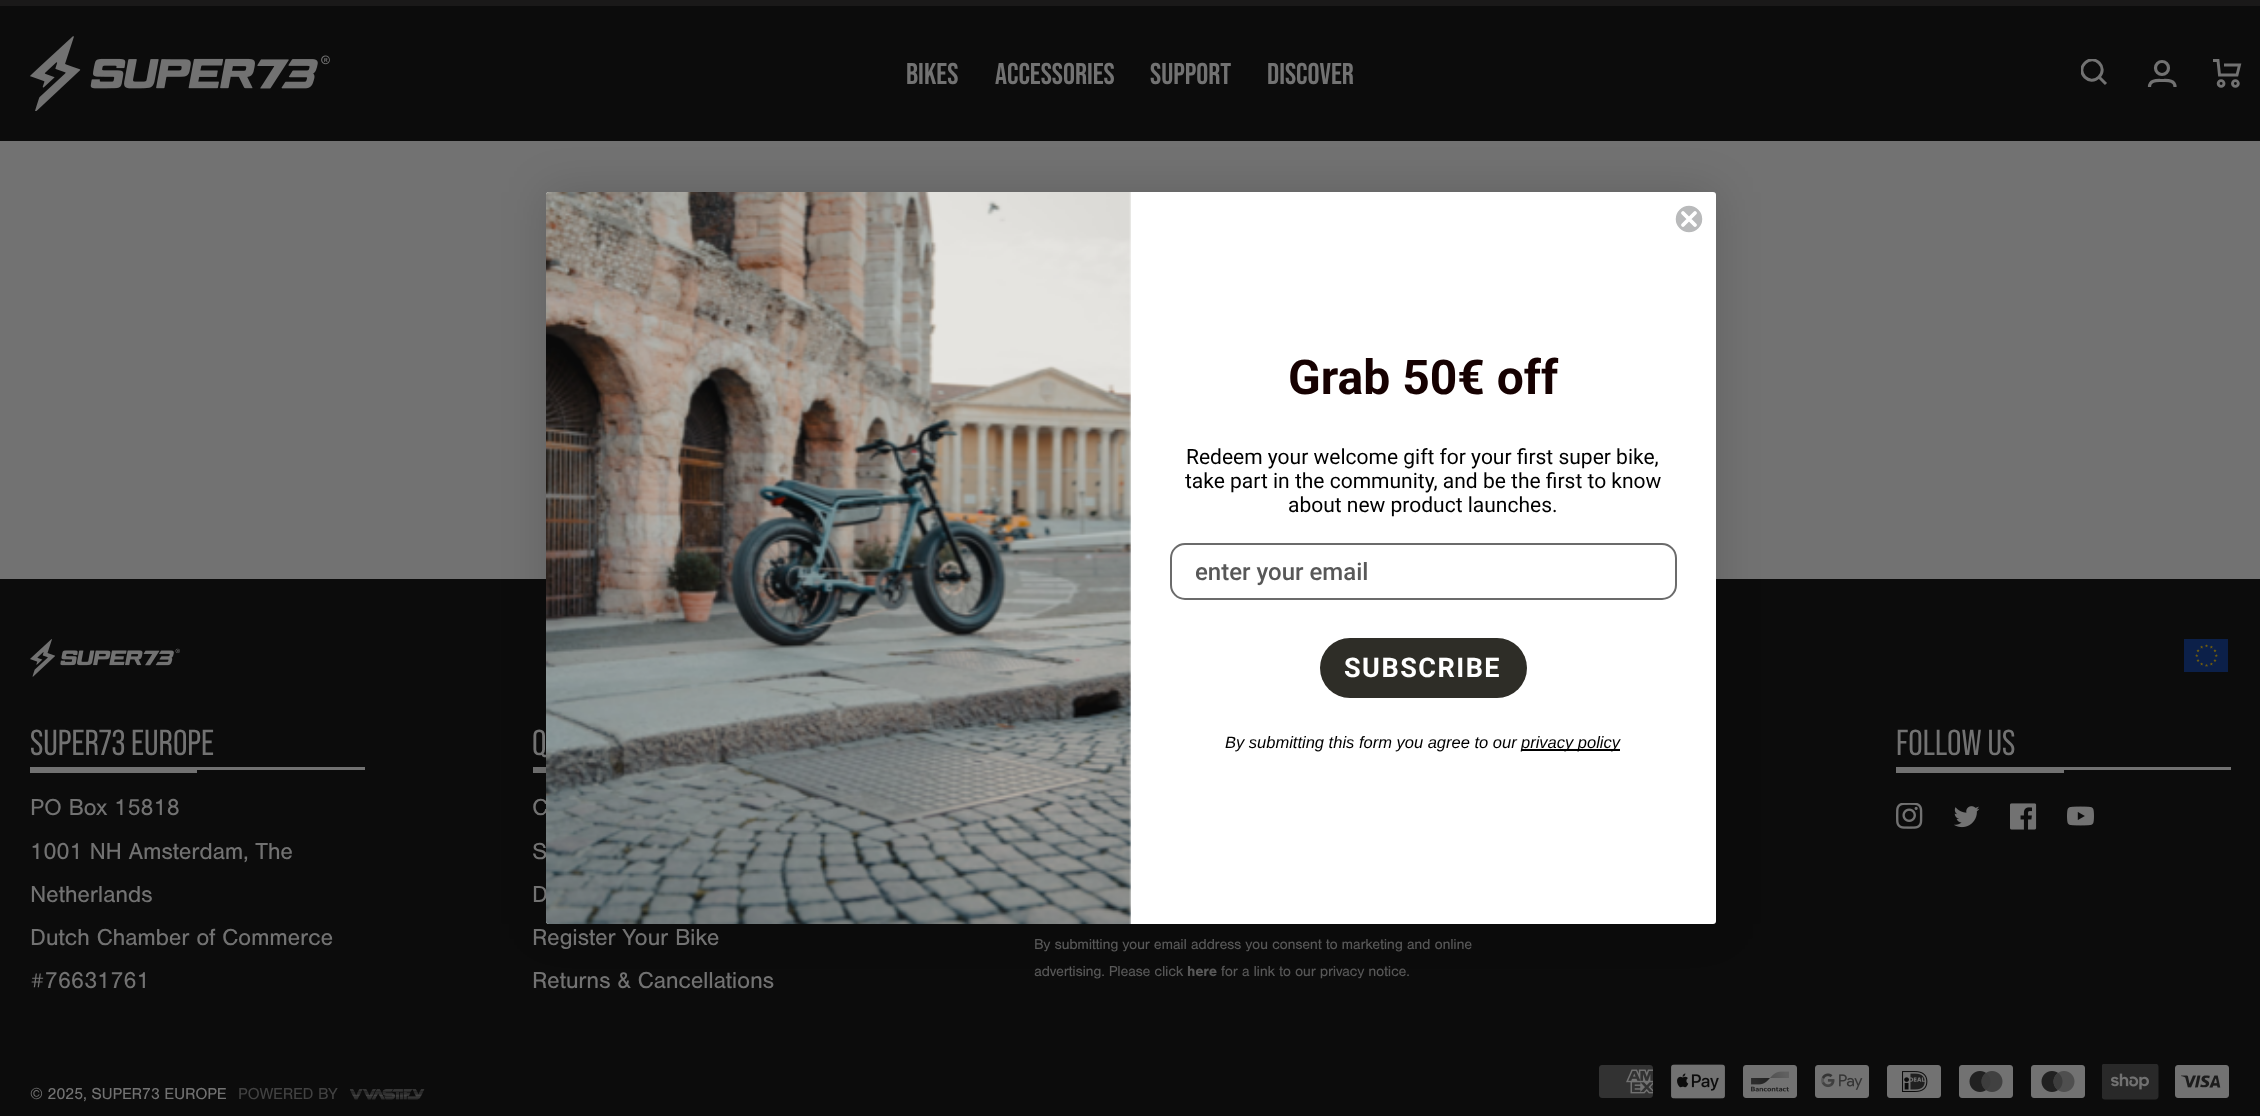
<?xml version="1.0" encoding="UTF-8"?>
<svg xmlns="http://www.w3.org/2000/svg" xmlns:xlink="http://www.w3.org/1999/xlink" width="2260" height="1116">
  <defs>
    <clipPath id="clip1"><rect x="2081" y="59" width="27" height="27" /></clipPath>
    <clipPath id="clip2"><rect x="2213" y="59" width="30" height="30" /></clipPath>
    <clipPath id="clip3"><rect x="1196" y="558" width="480" height="29" /></clipPath>
  </defs>
  <rect width="100%" height="100%" fill="#727272" />
  <rect width="2260" height="6" fill="#1a1919" />
  <rect y="6" width="2260" height="135" fill="#0c0c0c" />
  <image x="30" y="36" width="300" height="75" xlink:href="image1.png" />
  <g clip-path="url(#clip1)">
    <path d="M 2099 77 c 9.5 -9.5 -4.5 -23.5 -14 -14 c -9.5 9.5 4.5 23.5 14 14 z m 0 0 l 7 7" fill="none" stroke="#727272" stroke-width="3" />
  </g>
  <circle cx="2162" cy="68" r="6.5" fill="none" stroke="#727272" stroke-width="3.2" />
  <path d="M 2149.5 87 c 0 -7.5 8 -6.5 12.5 -6.5 c 5 0 13 -1 13 6.5" fill="none" stroke="#727272" stroke-width="3.2" />
  <g clip-path="url(#clip2)">
    <path d="M 2212.5 60.5 h 5.5 l 1.5 14.5 h 17.5 l 2.5 -10 h -15.5" fill="none" stroke="#727272" stroke-width="2.9" />
  </g>
  <circle cx="2221.1" cy="83.5" r="2.9" fill="none" stroke="#727272" stroke-width="2.9" />
  <circle cx="2235.4" cy="83.5" r="2.9" fill="none" stroke="#727272" stroke-width="2.9" />
  <rect y="579" width="2260" height="537" fill="#0c0c0c" />
  <rect x="533" y="767" width="13" height="6" fill="#727272" />
  <rect x="546" y="192" width="1170" height="732" rx="3" fill="#000000" fill-opacity="0.15" filter="blur(22.5px)" />
  <image x="30" y="639" width="150" height="38" xlink:href="image3.png" />
  <image x="2184" y="639" width="44" height="33" xlink:href="image4.png" />
  <rect x="30" y="767" width="335" height="3" fill="#727272" />
  <rect x="30" y="770" width="167" height="3" fill="#727272" />
  <rect x="1896" y="767" width="335" height="3" fill="#727272" />
  <rect x="1896" y="770" width="168" height="3" fill="#727272" />
  <image x="1896" y="803" width="27" height="26" xlink:href="image5.png" />
  <image x="1954" y="806" width="26" height="22" xlink:href="image6.png" />
  <image x="2010" y="803" width="27" height="27" xlink:href="image7.png" />
  <image x="2067" y="806" width="27" height="20" xlink:href="image8.png" />
  <image x="350" y="1089" width="75" height="11" xlink:href="image9.png" />
  <image x="1599" y="1065" width="54" height="33" xlink:href="image10.png" />
  <image x="1671" y="1064" width="54" height="35" xlink:href="image11.png" />
  <image x="1743" y="1065" width="54" height="33" xlink:href="image12.png" />
  <image x="1815" y="1065" width="54" height="33" xlink:href="image13.png" />
  <image x="1887" y="1065" width="54" height="33" xlink:href="image14.png" />
  <image x="1959" y="1065" width="54" height="33" xlink:href="image15.png" />
  <image x="2031" y="1065" width="54" height="33" xlink:href="image16.png" />
  <image x="2102" y="1064" width="57" height="36" xlink:href="image17.png" />
  <image x="2175" y="1065" width="54" height="33" xlink:href="image18.png" />
  <text x="906" y="84" style="font-family: Bebas Neue; font-size: 30px; font-weight: bold; fill: #727272">BIKES</text>
  <text x="995" y="84" style="font-family: Bebas Neue; font-size: 30px; font-weight: bold; fill: #727272">ACCESSORIES</text>
  <text x="1150" y="84" style="font-family: Bebas Neue; font-size: 30px; font-weight: bold; fill: #727272">SUPPORT</text>
  <text x="1267" y="84" style="font-family: Bebas Neue; font-size: 30px; font-weight: bold; fill: #727272">DISCOVER</text>
  <text x="30" y="755" style="font-family: Bebas Neue; font-size: 36px; fill: #727272">SUPER73 EUROPE</text>
  <text x="30" y="815" style="font-family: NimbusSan; font-size: 24px; letter-spacing: -0.3px; fill: #727272">PO Box 15818</text>
  <text x="30" y="859" style="font-family: NimbusSan; font-size: 24px; letter-spacing: -0.3px; fill: #727272">1001 NH Amsterdam, The</text>
  <text x="30" y="902" style="font-family: NimbusSan; font-size: 24px; letter-spacing: -0.3px; fill: #727272">Netherlands</text>
  <text x="30" y="945" style="font-family: NimbusSan; font-size: 24px; letter-spacing: -0.3px; fill: #727272">Dutch Chamber of Commerce</text>
  <text x="30" y="988" style="font-family: NimbusSan; font-size: 24px; letter-spacing: -0.3px; fill: #727272">#76631761</text>
  <text x="532" y="755" style="font-family: Bebas Neue; font-size: 36px; fill: #727272">Q</text>
  <text x="532" y="815" style="font-family: NimbusSan; font-size: 24px; letter-spacing: -0.3px; fill: #727272">C</text>
  <text x="532" y="859" style="font-family: NimbusSan; font-size: 24px; letter-spacing: -0.3px; fill: #727272">S</text>
  <text x="532" y="902" style="font-family: NimbusSan; font-size: 24px; letter-spacing: -0.3px; fill: #727272">D</text>
  <rect x="546" y="192" width="1170" height="732" rx="3" fill="#ffffff" />
  <circle cx="1689" cy="219" r="14" fill="#b9babb" stroke="#ffffff" stroke-width="1.5" />
  <path d="M 1683 213 l 12 12 m -12 0 l 12 -12 z" fill="none" stroke="#ffffff" stroke-width="3.8" stroke-linecap="round" stroke-linejoin="round" />
  <rect x="1521" y="749" width="99" height="2" fill="#000000" />
  <text x="1521" y="748" style="font-family: Liberation Sans; font-size: 16.5px; font-style: italic; fill: #000000">privacy policy</text>
  <text x="1225" y="748" style="font-family: Liberation Sans; font-size: 16.5px; font-style: italic; fill: #000000">By submitting this form you agree to our</text>
  <rect x="1320" y="638" width="207" height="60" rx="30" fill="#2e2d27" />
  <text x="1344" y="677" style="font-family: Roboto; font-size: 27px; font-weight: bold; letter-spacing: 1.5px; fill: #ffffff">SUBSCRIBE</text>
  <rect x="1171" y="544" width="505" height="55" rx="14" fill="none" stroke="#6b6b6b" stroke-width="2" />
  <g clip-path="url(#clip3)">
    <text x="1195" y="580" style="font-family: Roboto; font-size: 24px; font-weight: 500; fill: #585858">enter your email</text>
  </g>
  <text x="1288" y="512" style="font-family: Roboto; font-size: 21px; fill: #000000">about new product launches.</text>
  <text x="1185" y="488" style="font-family: Roboto; font-size: 21px; fill: #000000">take part in the community, and be the first to know</text>
  <text x="1186" y="464" style="font-family: Roboto; font-size: 21px; fill: #000000">Redeem your welcome gift for your first super bike,</text>
  <text x="1288" y="394" style="font-family: Roboto; font-size: 48px; font-weight: bold; fill: #160101">Grab 50€ off</text>
  <image x="546" y="192" width="585" height="732" xlink:href="image2.png" />
  <text x="532" y="945" style="font-family: NimbusSan; font-size: 24px; letter-spacing: -0.3px; fill: #727272">Register Your Bike</text>
  <text x="532" y="988" style="font-family: NimbusSan; font-size: 24px; letter-spacing: -0.3px; fill: #727272">Returns &amp; Cancellations</text>
  <text x="1896" y="755" style="font-family: Bebas Neue; font-size: 36px; fill: #727272">FOLLOW US</text>
  <text x="1034" y="949" style="font-family: NimbusSan; font-size: 15px; letter-spacing: -0.3px; fill: #585858">By submitting your email address you consent to marketing and online</text>
  <text x="1034" y="976" style="font-family: NimbusSan; font-size: 15px; letter-spacing: -0.3px; fill: #585858">advertising. Please click</text>
  <text x="1187" y="976" style="font-family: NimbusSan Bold; font-size: 15px; font-weight: bold; letter-spacing: -0.3px; fill: #585858">here</text>
  <text x="1221" y="976" style="font-family: NimbusSan; font-size: 15px; letter-spacing: -0.3px; fill: #585858">for a link to our privacy notice.</text>
  <text x="30" y="1099" style="font-family: NimbusSan; font-size: 16.5px; letter-spacing: -0.3px; fill: #727272">© 2025, SUPER73 EUROPE</text>
  <text x="238" y="1099" style="font-family: NimbusSan; font-size: 16.5px; letter-spacing: -0.3px; fill: #424242">POWERED BY</text>
</svg>
